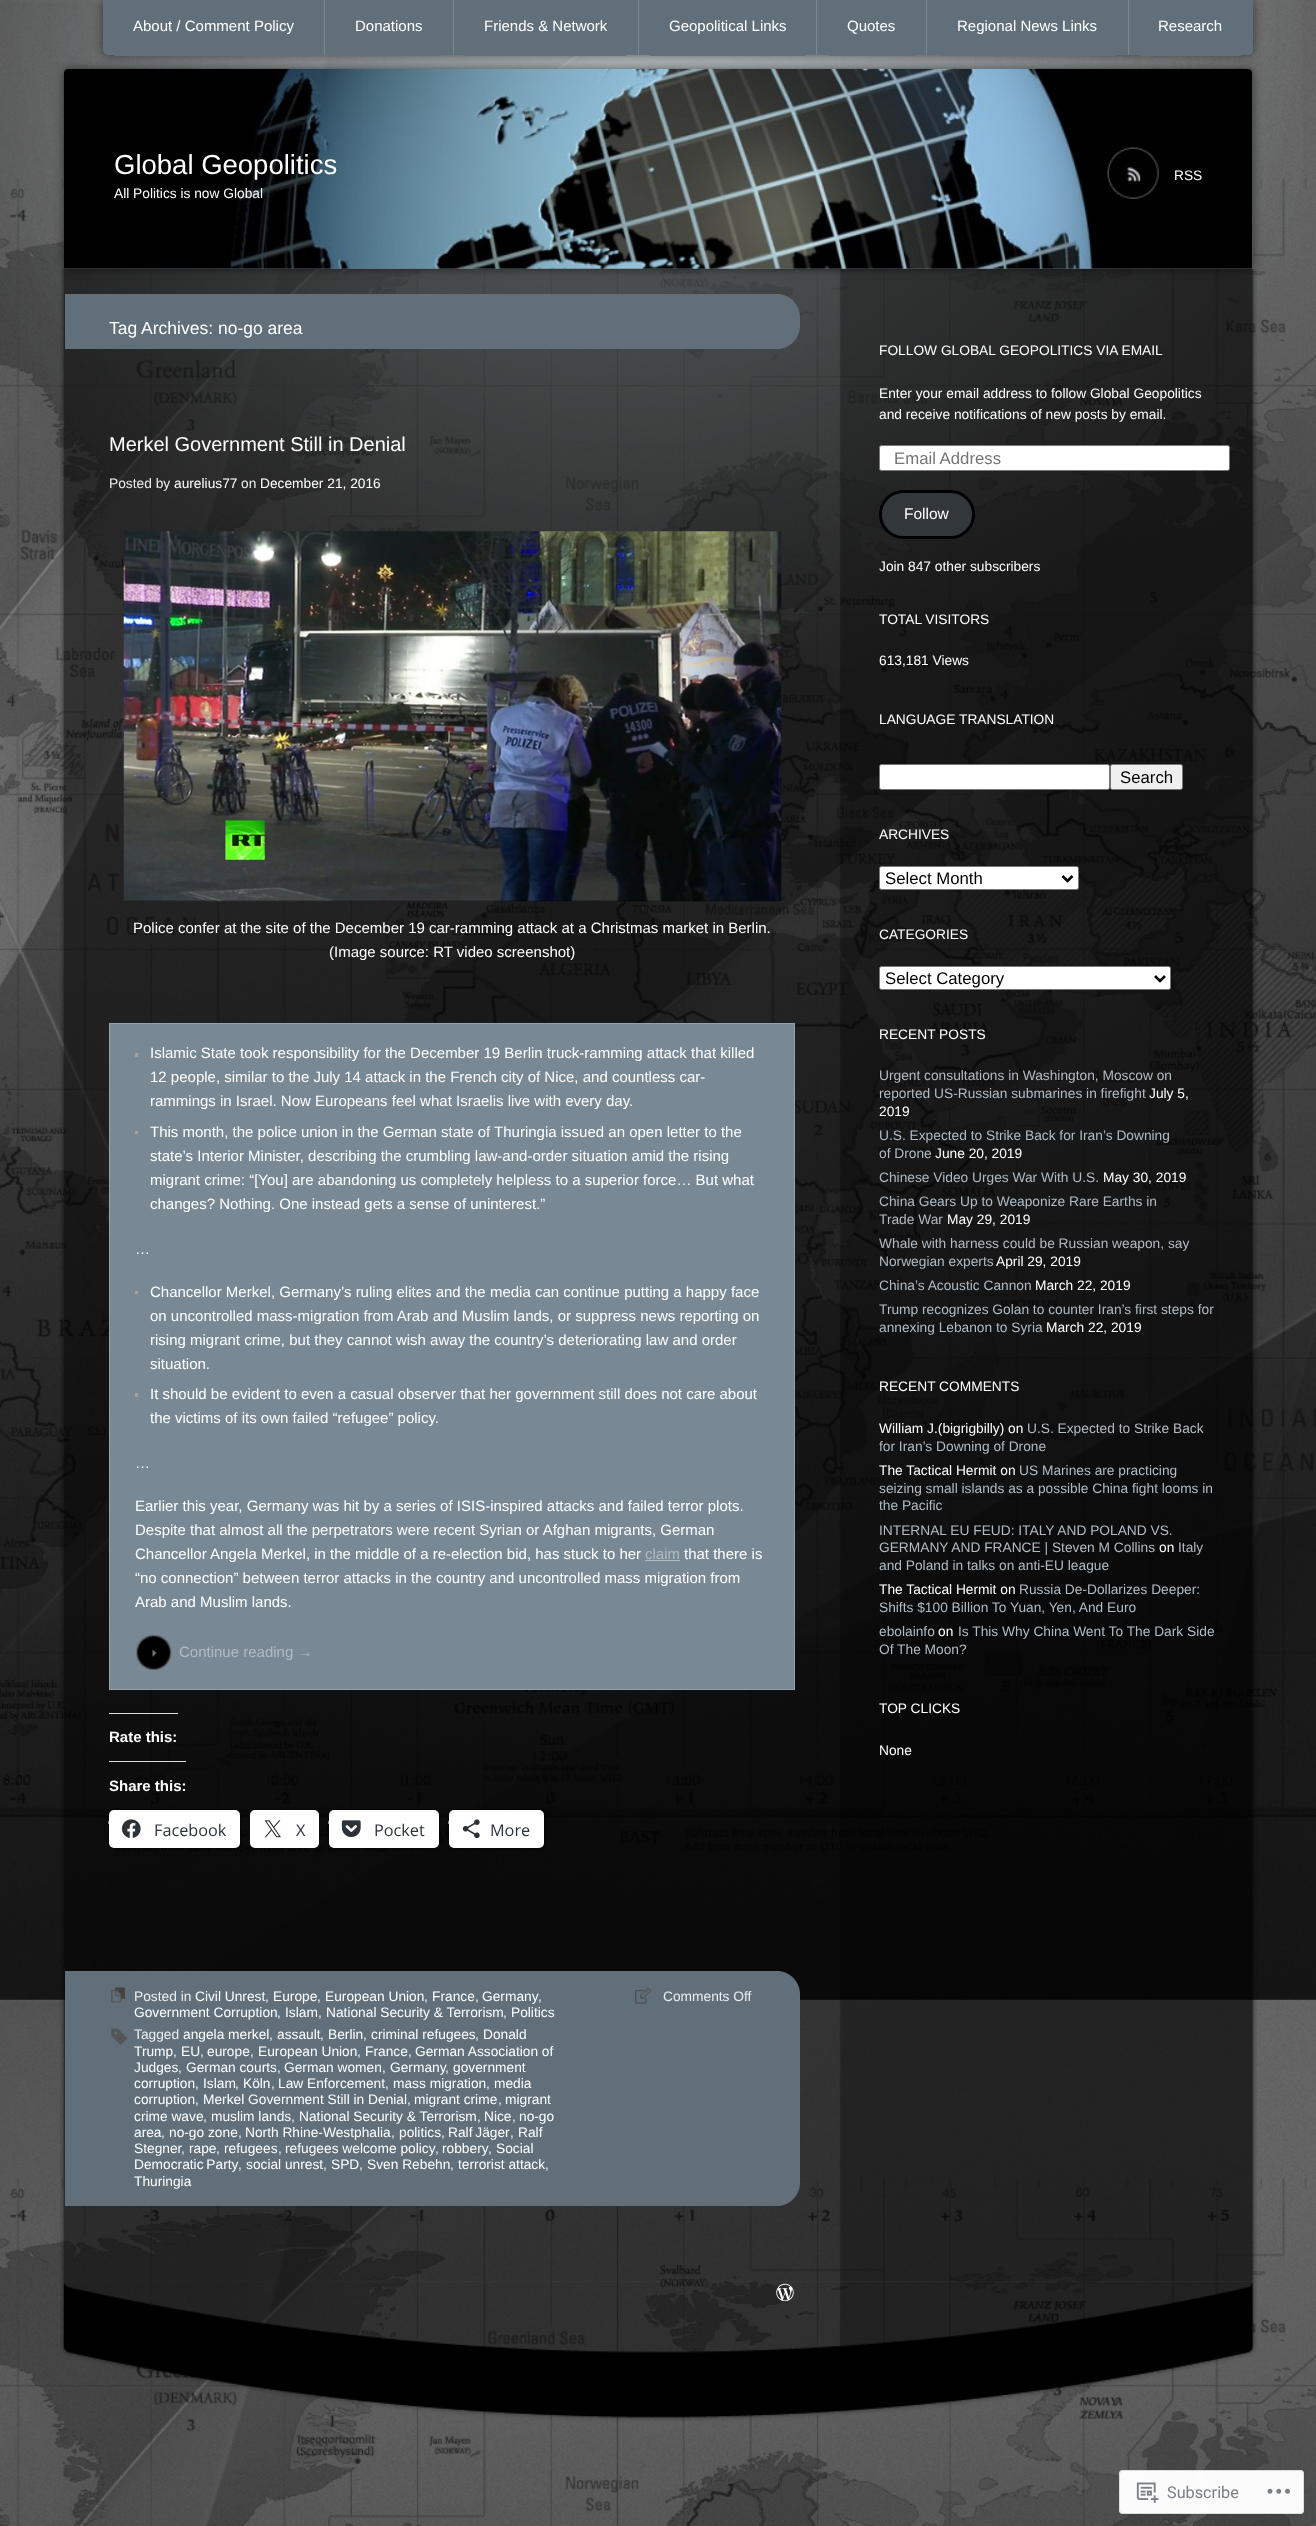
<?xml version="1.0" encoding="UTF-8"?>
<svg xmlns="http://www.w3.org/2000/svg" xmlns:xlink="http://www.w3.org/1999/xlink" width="1316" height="2526">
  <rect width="100%" height="100%" fill="#ffffff" />
  <image x="0" y="0" width="1316" height="2526" xlink:href="image1.png" />
  <image x="0" y="0" width="1303" height="666" xlink:href="image2.png" />
  <rect x="103" width="1150" height="55" rx="5" fill="#000000" fill-opacity="0.5" filter="blur(5px)" />
  <path d="M 103 0 h 1150 v 50 c 0 3 -2 5 -5 5 h -1140 c -3 0 -5 -2 -5 -5 z" fill="#606f7a" />
  <rect x="114" y="55" width="199" height="1" fill="#606f7a" />
  <rect x="324" width="1" height="55" fill="#788995" />
  <rect x="336" y="55" width="105" height="1" fill="#606f7a" />
  <rect x="453" width="1" height="55" fill="#788995" />
  <rect x="465" y="55" width="161" height="1" fill="#606f7a" />
  <rect x="638" width="1" height="55" fill="#788995" />
  <rect x="650" y="55" width="155" height="1" fill="#606f7a" />
  <rect x="816" width="1" height="55" fill="#788995" />
  <rect x="829" y="55" width="86" height="1" fill="#606f7a" />
  <rect x="926" width="1" height="55" fill="#788995" />
  <rect x="939" y="55" width="177" height="1" fill="#606f7a" />
  <rect x="1128" width="1" height="55" fill="#788995" />
  <rect x="1140" y="55" width="101" height="1" fill="#606f7a" />
  <image x="60" y="2281" width="1197" height="140" xlink:href="image15.png" />
  <image x="60" y="268" width="1197" height="2014" xlink:href="image5.png" />
  <rect x="64" y="69" width="1189" height="200" rx="5" fill="#000000" fill-opacity="0.5" filter="blur(5px)" />
  <path d="M 69 69 h 1179 c 3 0 5 2 5 5 v 195 h -1189 v -195 c 0 -3 2 -5 5 -5 z" fill="#606f7a" />
  <image x="63" y="68" width="1190" height="201" xlink:href="image3.png" />
  <image x="1107" y="147" width="52" height="52" xlink:href="image4.png" />
  <path d="M 65 294 h 712 c 12.5 0 23 10.5 23 23 v 9 c 0 12.5 -10.5 23 -23 23 h -712 z" fill="#606f7a" />
  <image x="123" y="531" width="659" height="371" xlink:href="image6.png" />
  <rect x="109.5" y="1023.5" width="685" height="666" fill="#788995" stroke="#95a2ab" />
  <rect x="135" y="1053" width="3" height="4" fill="#a2a2a2" />
  <rect x="135" y="1131" width="3" height="3" fill="#a2a2a2" />
  <rect x="135" y="1291" width="3" height="3" fill="#a2a2a2" />
  <rect x="135" y="1393" width="3" height="4" fill="#a2a2a2" />
  <rect x="645" y="1560" width="35" height="1" fill="#b1bbc2" />
  <image x="136" y="1634" width="36" height="36" xlink:href="image7.png" />
  <rect x="109" y="1713" width="69" height="1" fill="#dcdcde" />
  <rect x="109" y="1761" width="77" height="1" fill="#dcdcde" />
  <rect x="108" y="1821" width="4" height="3" fill="#a2a2a2" />
  <rect x="108.5" y="1809.5" width="132" height="39" rx="5.5" fill="none" stroke="#000000" stroke-opacity="0.12" />
  <rect x="109" y="1811" width="131" height="38" rx="5" fill="#000000" fill-opacity="0.12" filter="blur(1px)" />
  <rect x="109" y="1810" width="131" height="38" rx="5" fill="#ffffff" />
  <image x="121" y="1819" width="20" height="19" xlink:href="image8.png" />
  <rect x="250" y="1810" width="69" height="38" rx="5" fill="#ffffff" />
  <image x="264" y="1820" width="17" height="18" xlink:href="image9.png" />
  <rect x="328" y="1821" width="4" height="3" fill="#a2a2a2" />
  <rect x="328.5" y="1809.5" width="111" height="39" rx="5.5" fill="none" stroke="#000000" stroke-opacity="0.12" />
  <rect x="329" y="1811" width="110" height="38" rx="5" fill="#000000" fill-opacity="0.12" filter="blur(1px)" />
  <rect x="329" y="1810" width="110" height="38" rx="5" fill="#ffffff" />
  <image x="341" y="1820" width="20" height="17" xlink:href="image10.png" />
  <rect x="448" y="1821" width="4" height="3" fill="#a2a2a2" />
  <rect x="448.5" y="1809.5" width="96" height="39" rx="5.5" fill="none" stroke="#000000" stroke-opacity="0.12" />
  <rect x="449" y="1811" width="95" height="38" rx="5" fill="#000000" fill-opacity="0.12" filter="blur(1px)" />
  <rect x="449" y="1810" width="95" height="38" rx="5" fill="#ffffff" />
  <image x="462" y="1819" width="18" height="20" xlink:href="image11.png" />
  <path d="M 65 1971 h 712 c 12.5 0 23 10.5 23 23 v 189 c 0 12.5 -10.5 23 -23 23 h -712 z" fill="#606f7a" />
  <image x="111" y="1987" width="14" height="16" xlink:href="image12.png" />
  <image x="635" y="1987" width="17" height="17" xlink:href="image13.png" />
  <image x="111" y="2028" width="17" height="17" xlink:href="image14.png" />
  <rect x="879.5" y="445.5" width="350" height="25" rx="2" fill="#ffffff" stroke="#767676" />
  <rect x="880.5" y="491.5" width="93" height="46" rx="23" fill="#32373c" stroke="#000000" stroke-width="3" />
  <rect x="879.5" y="764.5" width="230" height="25" rx="2" fill="#ffffff" stroke="#767676" />
  <rect x="1110.5" y="764.5" width="72" height="25" rx="2" fill="#efefef" stroke="#767676" />
  <rect x="879.5" y="866.5" width="199" height="23" rx="2" fill="#ffffff" stroke="#767676" />
  <path d="M 1062.5 876 l 5 5 l 5 -5" fill="none" stroke="#000000" stroke-width="2.5" />
  <rect x="879.5" y="966.5" width="291" height="23" rx="2" fill="#ffffff" stroke="#767676" />
  <path d="M 1155 976 l 5 5 l 5 -5" fill="none" stroke="#000000" stroke-width="2.5" />
  <image x="776" y="2283" width="18" height="18" xlink:href="image16.png" />
  <rect x="1119" y="2470" width="185" height="44" rx="4" fill="#ffffff" fill-opacity="0.98" />
  <rect x="1119.5" y="2470.5" width="184" height="43" rx="3.5" fill="none" stroke="#dcdcde" stroke-opacity="0.98" />
  <image x="1136" y="2482" width="23" height="21" xlink:href="image17.png" />
  <image x="1267" y="2488" width="23" height="6" xlink:href="image18.png" />
  <text x="133" y="31" style="font-family: Liberation Sans; font-size: 15px; fill: #ffffff">About / Comment Policy</text>
  <text x="355" y="31" style="font-family: Liberation Sans; font-size: 15px; fill: #ffffff">Donations</text>
  <text x="484" y="31" style="font-family: Liberation Sans; font-size: 15px; fill: #ffffff">Friends &amp; Network</text>
  <text x="669" y="31" style="font-family: Liberation Sans; font-size: 15px; fill: #ffffff">Geopolitical Links</text>
  <text x="847" y="31" style="font-family: Liberation Sans; font-size: 15px; fill: #ffffff">Quotes</text>
  <text x="957" y="31" style="font-family: Liberation Sans; font-size: 15px; fill: #ffffff">Regional News Links</text>
  <text x="1158" y="31" style="font-family: Liberation Sans; font-size: 15px; fill: #ffffff">Research</text>
  <text x="114" y="174" style="font-family: Liberation Sans; font-size: 27.5px; fill: #ffffff">Global Geopolitics</text>
  <text x="114" y="198" style="font-family: Liberation Sans; font-size: 13.75px; fill: #ffffff">All Politics is now Global</text>
  <text x="1174" y="180" style="font-family: Liberation Sans; font-size: 13.75px; fill: #ffffff">RSS</text>
  <text x="109" y="334" style="font-family: Liberation Sans; font-size: 17.5px; fill: #ffffff">Tag Archives: no-go area</text>
  <text x="109" y="451" style="font-family: Liberation Sans; font-size: 20px; fill: #ffffff">Merkel Government Still in Denial</text>
  <text x="109" y="488" style="font-family: Liberation Sans; font-size: 13.75px; fill: #ebedef">Posted by</text>
  <text x="174" y="488" style="font-family: Liberation Sans; font-size: 13.75px; fill: #ffffff">aurelius77</text>
  <text x="241" y="488" style="font-family: Liberation Sans; font-size: 13.75px; fill: #ebedef">on</text>
  <text x="260" y="488" style="font-family: Liberation Sans; font-size: 13.75px; fill: #ffffff">December 21, 2016</text>
  <text x="133" y="933" style="font-family: Liberation Sans; font-size: 15px; fill: #ffffff">Police confer at the site of the December 19 car-ramming attack at a Christmas market in Berlin.</text>
  <text x="329" y="957" style="font-family: Liberation Sans; font-size: 15px; fill: #ffffff">(Image source: RT video screenshot)</text>
  <text x="150" y="1058" style="font-family: Liberation Sans; font-size: 15px; fill: #ffffff">Islamic State took responsibility for the December 19 Berlin truck-ramming attack that killed</text>
  <text x="150" y="1082" style="font-family: Liberation Sans; font-size: 15px; fill: #ffffff">12 people, similar to the July 14 attack in the French city of Nice, and countless car-</text>
  <text x="150" y="1106" style="font-family: Liberation Sans; font-size: 15px; fill: #ffffff">rammings in Israel. Now Europeans feel what Israelis live with every day.</text>
  <text x="150" y="1137" style="font-family: Liberation Sans; font-size: 15px; fill: #ffffff">This month, the police union in the German state of Thuringia issued an open letter to the</text>
  <text x="150" y="1161" style="font-family: Liberation Sans; font-size: 15px; fill: #ffffff">state’s Interior Minister, describing the crumbling law-and-order situation amid the rising</text>
  <text x="150" y="1185" style="font-family: Liberation Sans; font-size: 15px; fill: #ffffff">migrant crime: “[You] are abandoning us completely helpless to a superior force… But what</text>
  <text x="150" y="1209" style="font-family: Liberation Sans; font-size: 15px; fill: #ffffff">changes? Nothing. One instead gets a sense of uninterest.”</text>
  <text x="135" y="1254" style="font-family: Liberation Sans; font-size: 15px; fill: #ffffff">…</text>
  <text x="150" y="1297" style="font-family: Liberation Sans; font-size: 15px; fill: #ffffff">Chancellor Merkel, Germany’s ruling elites and the media can continue putting a happy face</text>
  <text x="150" y="1321" style="font-family: Liberation Sans; font-size: 15px; fill: #ffffff">on uncontrolled mass-migration from Arab and Muslim lands, or suppress news reporting on</text>
  <text x="150" y="1345" style="font-family: Liberation Sans; font-size: 15px; fill: #ffffff">rising migrant crime, but they cannot wish away the country’s deteriorating law and order</text>
  <text x="150" y="1369" style="font-family: Liberation Sans; font-size: 15px; fill: #ffffff">situation.</text>
  <text x="150" y="1399" style="font-family: Liberation Sans; font-size: 15px; fill: #ffffff">It should be evident to even a casual observer that her government still does not care about</text>
  <text x="150" y="1423" style="font-family: Liberation Sans; font-size: 15px; fill: #ffffff">the victims of its own failed “refugee” policy.</text>
  <text x="135" y="1468" style="font-family: Liberation Sans; font-size: 15px; fill: #ffffff">…</text>
  <text x="135" y="1511" style="font-family: Liberation Sans; font-size: 15px; fill: #ffffff">Earlier this year, Germany was hit by a series of ISIS-inspired attacks and failed terror plots.</text>
  <text x="135" y="1535" style="font-family: Liberation Sans; font-size: 15px; fill: #ffffff">Despite that almost all the perpetrators were recent Syrian or Afghan migrants, German</text>
  <text x="135" y="1559" style="font-family: Liberation Sans; font-size: 15px; fill: #ffffff">Chancellor Angela Merkel, in the middle of a re-election bid, has stuck to her</text>
  <text x="645" y="1559" style="font-family: Liberation Sans; font-size: 15px; fill: #b1bbc2">claim</text>
  <text x="684" y="1559" style="font-family: Liberation Sans; font-size: 15px; fill: #ffffff">that there is</text>
  <text x="135" y="1583" style="font-family: Liberation Sans; font-size: 15px; fill: #ffffff">“no connection” between terror attacks in the country and uncontrolled mass migration from</text>
  <text x="135" y="1607" style="font-family: Liberation Sans; font-size: 15px; fill: #ffffff">Arab and Muslim lands.</text>
  <text x="179" y="1657" style="font-family: Liberation Sans; font-size: 15px; fill: #b1bbc2">Continue reading →</text>
  <text x="109" y="1742" style="font-family: Liberation Sans; font-size: 15px; font-weight: bold; fill: #ffffff">Rate this:</text>
  <text x="109" y="1791" style="font-family: Liberation Sans; font-size: 15px; font-weight: bold; fill: #ffffff">Share this:</text>
  <text x="154" y="1836" style="font-family: Open Sans; font-size: 16.25px; fill: #2c3338">Facebook</text>
  <text x="296" y="1836" style="font-family: Open Sans; font-size: 16.25px; fill: #2c3338">X</text>
  <text x="374" y="1836" style="font-family: Open Sans; font-size: 16.25px; fill: #2c3338">Pocket</text>
  <text x="490" y="1836" style="font-family: Open Sans; font-size: 16.25px; fill: #2c3338">More</text>
  <text x="134" y="2001" style="font-family: Liberation Sans; font-size: 13.75px; fill: #ebedef">Posted in</text>
  <text x="195" y="2001" style="font-family: Liberation Sans; font-size: 13.75px; fill: #ffffff">Civil Unrest</text>
  <text x="265" y="2001" style="font-family: Liberation Sans; font-size: 13.75px; fill: #ebedef">,</text>
  <text x="273" y="2001" style="font-family: Liberation Sans; font-size: 13.75px; fill: #ffffff">Europe</text>
  <text x="317" y="2001" style="font-family: Liberation Sans; font-size: 13.75px; fill: #ebedef">,</text>
  <text x="325" y="2001" style="font-family: Liberation Sans; font-size: 13.75px; fill: #ffffff">European Union</text>
  <text x="424" y="2001" style="font-family: Liberation Sans; font-size: 13.75px; fill: #ebedef">,</text>
  <text x="432" y="2001" style="font-family: Liberation Sans; font-size: 13.75px; fill: #ffffff">France</text>
  <text x="475" y="2001" style="font-family: Liberation Sans; font-size: 13.75px; fill: #ebedef">,</text>
  <text x="482" y="2001" style="font-family: Liberation Sans; font-size: 13.75px; fill: #ffffff">Germany</text>
  <text x="538" y="2001" style="font-family: Liberation Sans; font-size: 13.75px; fill: #ebedef">,</text>
  <text x="134" y="2017" style="font-family: Liberation Sans; font-size: 13.75px; fill: #ffffff">Government Corruption</text>
  <text x="277" y="2017" style="font-family: Liberation Sans; font-size: 13.75px; fill: #ebedef">,</text>
  <text x="285" y="2017" style="font-family: Liberation Sans; font-size: 13.75px; fill: #ffffff">Islam</text>
  <text x="318" y="2017" style="font-family: Liberation Sans; font-size: 13.75px; fill: #ebedef">,</text>
  <text x="326" y="2017" style="font-family: Liberation Sans; font-size: 13.75px; fill: #ffffff">National Security &amp; Terrorism</text>
  <text x="503" y="2017" style="font-family: Liberation Sans; font-size: 13.75px; fill: #ebedef">,</text>
  <text x="511" y="2017" style="font-family: Liberation Sans; font-size: 13.75px; fill: #ffffff">Politics</text>
  <text x="663" y="2001" style="font-family: Liberation Sans; font-size: 13.75px; fill: #ebedef">Comments Off</text>
  <text x="134" y="2039" style="font-family: Liberation Sans; font-size: 13.75px; fill: #ebedef">Tagged</text>
  <text x="183" y="2039" style="font-family: Liberation Sans; font-size: 13.75px; fill: #ffffff">angela merkel</text>
  <text x="269" y="2039" style="font-family: Liberation Sans; font-size: 13.75px; fill: #ebedef">,</text>
  <text x="277" y="2039" style="font-family: Liberation Sans; font-size: 13.75px; fill: #ffffff">assault</text>
  <text x="320" y="2039" style="font-family: Liberation Sans; font-size: 13.75px; fill: #ebedef">,</text>
  <text x="328" y="2039" style="font-family: Liberation Sans; font-size: 13.75px; fill: #ffffff">Berlin</text>
  <text x="363" y="2039" style="font-family: Liberation Sans; font-size: 13.75px; fill: #ebedef">,</text>
  <text x="371" y="2039" style="font-family: Liberation Sans; font-size: 13.75px; fill: #ffffff">criminal refugees</text>
  <text x="475" y="2039" style="font-family: Liberation Sans; font-size: 13.75px; fill: #ebedef">,</text>
  <text x="483" y="2039" style="font-family: Liberation Sans; font-size: 13.75px; fill: #ffffff">Donald</text>
  <text x="134" y="2056" style="font-family: Liberation Sans; font-size: 13.75px; fill: #ffffff">Trump</text>
  <text x="173" y="2056" style="font-family: Liberation Sans; font-size: 13.75px; fill: #ebedef">,</text>
  <text x="181" y="2056" style="font-family: Liberation Sans; font-size: 13.75px; fill: #ffffff">EU</text>
  <text x="200" y="2056" style="font-family: Liberation Sans; font-size: 13.75px; fill: #ebedef">,</text>
  <text x="207" y="2056" style="font-family: Liberation Sans; font-size: 13.75px; fill: #ffffff">europe</text>
  <text x="250" y="2056" style="font-family: Liberation Sans; font-size: 13.75px; fill: #ebedef">,</text>
  <text x="258" y="2056" style="font-family: Liberation Sans; font-size: 13.75px; fill: #ffffff">European Union</text>
  <text x="357" y="2056" style="font-family: Liberation Sans; font-size: 13.75px; fill: #ebedef">,</text>
  <text x="365" y="2056" style="font-family: Liberation Sans; font-size: 13.75px; fill: #ffffff">France</text>
  <text x="408" y="2056" style="font-family: Liberation Sans; font-size: 13.75px; fill: #ebedef">,</text>
  <text x="415" y="2056" style="font-family: Liberation Sans; font-size: 13.75px; fill: #ffffff">German Association of</text>
  <text x="134" y="2072" style="font-family: Liberation Sans; font-size: 13.75px; fill: #ffffff">Judges</text>
  <text x="178" y="2072" style="font-family: Liberation Sans; font-size: 13.75px; fill: #ebedef">,</text>
  <text x="186" y="2072" style="font-family: Liberation Sans; font-size: 13.75px; fill: #ffffff">German courts</text>
  <text x="277" y="2072" style="font-family: Liberation Sans; font-size: 13.75px; fill: #ebedef">,</text>
  <text x="284" y="2072" style="font-family: Liberation Sans; font-size: 13.75px; fill: #ffffff">German women</text>
  <text x="382" y="2072" style="font-family: Liberation Sans; font-size: 13.75px; fill: #ebedef">,</text>
  <text x="390" y="2072" style="font-family: Liberation Sans; font-size: 13.75px; fill: #ffffff">Germany</text>
  <text x="453" y="2072" style="font-family: Liberation Sans; font-size: 13.75px; fill: #ffffff">government</text>
  <text x="445" y="2072" style="font-family: Liberation Sans; font-size: 13.75px; fill: #ebedef">,</text>
  <text x="134" y="2088" style="font-family: Liberation Sans; font-size: 13.75px; fill: #ffffff">corruption</text>
  <text x="195" y="2088" style="font-family: Liberation Sans; font-size: 13.75px; fill: #ebedef">,</text>
  <text x="203" y="2088" style="font-family: Liberation Sans; font-size: 13.75px; fill: #ffffff">Islam</text>
  <text x="235" y="2088" style="font-family: Liberation Sans; font-size: 13.75px; fill: #ebedef">,</text>
  <text x="243" y="2088" style="font-family: Liberation Sans; font-size: 13.75px; fill: #ffffff">Köln</text>
  <text x="271" y="2088" style="font-family: Liberation Sans; font-size: 13.75px; fill: #ebedef">,</text>
  <text x="278" y="2088" style="font-family: Liberation Sans; font-size: 13.75px; fill: #ffffff">Law Enforcement</text>
  <text x="385" y="2088" style="font-family: Liberation Sans; font-size: 13.75px; fill: #ebedef">,</text>
  <text x="393" y="2088" style="font-family: Liberation Sans; font-size: 13.75px; fill: #ffffff">mass migration</text>
  <text x="486" y="2088" style="font-family: Liberation Sans; font-size: 13.75px; fill: #ebedef">,</text>
  <text x="494" y="2088" style="font-family: Liberation Sans; font-size: 13.75px; fill: #ffffff">media</text>
  <text x="134" y="2104" style="font-family: Liberation Sans; font-size: 13.75px; fill: #ffffff">corruption</text>
  <text x="195" y="2104" style="font-family: Liberation Sans; font-size: 13.75px; fill: #ebedef">,</text>
  <text x="203" y="2104" style="font-family: Liberation Sans; font-size: 13.75px; fill: #ffffff">Merkel Government Still in Denial</text>
  <text x="407" y="2104" style="font-family: Liberation Sans; font-size: 13.75px; fill: #ebedef">,</text>
  <text x="414" y="2104" style="font-family: Liberation Sans; font-size: 13.75px; fill: #ffffff">migrant crime</text>
  <text x="498" y="2104" style="font-family: Liberation Sans; font-size: 13.75px; fill: #ebedef">,</text>
  <text x="505" y="2104" style="font-family: Liberation Sans; font-size: 13.75px; fill: #ffffff">migrant</text>
  <text x="134" y="2121" style="font-family: Liberation Sans; font-size: 13.75px; fill: #ffffff">crime wave</text>
  <text x="203" y="2121" style="font-family: Liberation Sans; font-size: 13.75px; fill: #ebedef">,</text>
  <text x="211" y="2121" style="font-family: Liberation Sans; font-size: 13.75px; fill: #ffffff">muslim lands</text>
  <text x="291" y="2121" style="font-family: Liberation Sans; font-size: 13.75px; fill: #ebedef">,</text>
  <text x="299" y="2121" style="font-family: Liberation Sans; font-size: 13.75px; fill: #ffffff">National Security &amp; Terrorism</text>
  <text x="477" y="2121" style="font-family: Liberation Sans; font-size: 13.75px; fill: #ebedef">,</text>
  <text x="484" y="2121" style="font-family: Liberation Sans; font-size: 13.75px; fill: #ffffff">Nice</text>
  <text x="512" y="2121" style="font-family: Liberation Sans; font-size: 13.75px; fill: #ebedef">,</text>
  <text x="519" y="2121" style="font-family: Liberation Sans; font-size: 13.75px; fill: #ffffff">no-go</text>
  <text x="134" y="2137" style="font-family: Liberation Sans; font-size: 13.75px; fill: #ffffff">area</text>
  <text x="161" y="2137" style="font-family: Liberation Sans; font-size: 13.75px; fill: #ebedef">,</text>
  <text x="169" y="2137" style="font-family: Liberation Sans; font-size: 13.75px; fill: #ffffff">no-go zone</text>
  <text x="238" y="2137" style="font-family: Liberation Sans; font-size: 13.75px; fill: #ebedef">,</text>
  <text x="245" y="2137" style="font-family: Liberation Sans; font-size: 13.75px; fill: #ffffff">North Rhine-Westphalia</text>
  <text x="391" y="2137" style="font-family: Liberation Sans; font-size: 13.75px; fill: #ebedef">,</text>
  <text x="399" y="2137" style="font-family: Liberation Sans; font-size: 13.75px; fill: #ffffff">politics</text>
  <text x="441" y="2137" style="font-family: Liberation Sans; font-size: 13.75px; fill: #ebedef">,</text>
  <text x="448" y="2137" word-spacing="-1" style="font-family: Liberation Sans; font-size: 13.75px; fill: #ffffff">Ralf Jäger</text>
  <text x="510" y="2137" style="font-family: Liberation Sans; font-size: 13.75px; fill: #ebedef">,</text>
  <text x="518" y="2137" style="font-family: Liberation Sans; font-size: 13.75px; fill: #ffffff">Ralf</text>
  <text x="134" y="2153" style="font-family: Liberation Sans; font-size: 13.75px; fill: #ffffff">Stegner</text>
  <text x="181" y="2153" style="font-family: Liberation Sans; font-size: 13.75px; fill: #ebedef">,</text>
  <text x="189" y="2153" style="font-family: Liberation Sans; font-size: 13.75px; fill: #ffffff">rape</text>
  <text x="216" y="2153" style="font-family: Liberation Sans; font-size: 13.75px; fill: #ebedef">,</text>
  <text x="224" y="2153" style="font-family: Liberation Sans; font-size: 13.75px; fill: #ffffff">refugees</text>
  <text x="278" y="2153" style="font-family: Liberation Sans; font-size: 13.75px; fill: #ebedef">,</text>
  <text x="285" y="2153" style="font-family: Liberation Sans; font-size: 13.75px; fill: #ffffff">refugees welcome policy</text>
  <text x="435" y="2153" style="font-family: Liberation Sans; font-size: 13.75px; fill: #ebedef">,</text>
  <text x="442" y="2153" style="font-family: Liberation Sans; font-size: 13.75px; fill: #ffffff">robbery</text>
  <text x="488" y="2153" style="font-family: Liberation Sans; font-size: 13.75px; fill: #ebedef">,</text>
  <text x="496" y="2153" style="font-family: Liberation Sans; font-size: 13.75px; fill: #ffffff">Social</text>
  <text x="134" y="2169" word-spacing="-1" style="font-family: Liberation Sans; font-size: 13.75px; fill: #ffffff">Democratic Party</text>
  <text x="238" y="2169" style="font-family: Liberation Sans; font-size: 13.75px; fill: #ebedef">,</text>
  <text x="246" y="2169" style="font-family: Liberation Sans; font-size: 13.75px; fill: #ffffff">social unrest</text>
  <text x="323" y="2169" style="font-family: Liberation Sans; font-size: 13.75px; fill: #ebedef">,</text>
  <text x="331" y="2169" style="font-family: Liberation Sans; font-size: 13.75px; fill: #ffffff">SPD</text>
  <text x="359" y="2169" style="font-family: Liberation Sans; font-size: 13.75px; fill: #ebedef">,</text>
  <text x="367" y="2169" style="font-family: Liberation Sans; font-size: 13.75px; fill: #ffffff">Sven Rebehn</text>
  <text x="450" y="2169" style="font-family: Liberation Sans; font-size: 13.75px; fill: #ebedef">,</text>
  <text x="458" y="2169" style="font-family: Liberation Sans; font-size: 13.75px; fill: #ffffff">terrorist attack</text>
  <text x="545" y="2169" style="font-family: Liberation Sans; font-size: 13.75px; fill: #ebedef">,</text>
  <text x="134" y="2186" style="font-family: Liberation Sans; font-size: 13.75px; fill: #ffffff">Thuringia</text>
  <text x="879" y="355" style="font-family: Liberation Sans; font-size: 13.75px; fill: #ffffff">FOLLOW GLOBAL GEOPOLITICS VIA EMAIL</text>
  <text x="879" y="398" style="font-family: Liberation Sans; font-size: 13.75px; fill: #ffffff">Enter your email address to follow Global Geopolitics</text>
  <text x="879" y="419" style="font-family: Liberation Sans; font-size: 13.75px; fill: #ffffff">and receive notifications of new posts by email.</text>
  <text x="894" y="464" style="font-family: Liberation Sans; font-size: 16.75px; fill: #757575">Email Address</text>
  <text x="904" y="519" style="font-family: Liberation Sans; font-size: 15.5px; fill: #ffffff">Follow</text>
  <text x="879" y="571" style="font-family: Liberation Sans; font-size: 13.75px; fill: #ffffff">Join 847 other subscribers</text>
  <text x="879" y="624" style="font-family: Liberation Sans; font-size: 13.75px; fill: #ffffff">TOTAL VISITORS</text>
  <text x="879" y="665" style="font-family: Liberation Sans; font-size: 13.75px; fill: #ffffff">613,181 Views</text>
  <text x="879" y="724" style="font-family: Liberation Sans; font-size: 13.75px; fill: #ffffff">LANGUAGE TRANSLATION</text>
  <text x="1120" y="783" style="font-family: Liberation Sans; font-size: 16.75px; fill: #000000">Search</text>
  <text x="879" y="839" style="font-family: Liberation Sans; font-size: 13.75px; fill: #ffffff">ARCHIVES</text>
  <text x="885" y="884" style="font-family: Liberation Sans; font-size: 16.75px; fill: #000000">Select Month</text>
  <text x="879" y="939" style="font-family: Liberation Sans; font-size: 13.75px; fill: #ffffff">CATEGORIES</text>
  <text x="885" y="984" style="font-family: Liberation Sans; font-size: 16.75px; fill: #000000">Select Category</text>
  <text x="879" y="1039" style="font-family: Liberation Sans; font-size: 13.75px; fill: #ffffff">RECENT POSTS</text>
  <text x="879" y="1080" style="font-family: Liberation Sans; font-size: 13.75px; fill: #b1bbc2">Urgent consultations in Washington, Moscow on</text>
  <text x="879" y="1098" style="font-family: Liberation Sans; font-size: 13.75px; fill: #b1bbc2">reported US-Russian submarines in firefight</text>
  <text x="1149" y="1098" style="font-family: Liberation Sans; font-size: 13.75px; fill: #ffffff">July 5,</text>
  <text x="879" y="1116" style="font-family: Liberation Sans; font-size: 13.75px; fill: #ffffff">2019</text>
  <text x="879" y="1140" style="font-family: Liberation Sans; font-size: 13.75px; fill: #b1bbc2">U.S. Expected to Strike Back for Iran’s Downing</text>
  <text x="879" y="1158" style="font-family: Liberation Sans; font-size: 13.75px; fill: #b1bbc2">of Drone</text>
  <text x="935" y="1158" style="font-family: Liberation Sans; font-size: 13.75px; fill: #ffffff">June 20, 2019</text>
  <text x="879" y="1182" style="font-family: Liberation Sans; font-size: 13.75px; fill: #b1bbc2">Chinese Video Urges War With U.S.</text>
  <text x="1103" y="1182" style="font-family: Liberation Sans; font-size: 13.75px; fill: #ffffff">May 30, 2019</text>
  <text x="879" y="1206" style="font-family: Liberation Sans; font-size: 13.75px; fill: #b1bbc2">China Gears Up to Weaponize Rare Earths in</text>
  <text x="879" y="1224" style="font-family: Liberation Sans; font-size: 13.75px; fill: #b1bbc2">Trade War</text>
  <text x="947" y="1224" style="font-family: Liberation Sans; font-size: 13.75px; fill: #ffffff">May 29, 2019</text>
  <text x="879" y="1248" style="font-family: Liberation Sans; font-size: 13.75px; fill: #b1bbc2">Whale with harness could be Russian weapon, say</text>
  <text x="879" y="1266" style="font-family: Liberation Sans; font-size: 13.75px; fill: #b1bbc2">Norwegian experts</text>
  <text x="996" y="1266" style="font-family: Liberation Sans; font-size: 13.75px; fill: #ffffff">April 29, 2019</text>
  <text x="879" y="1290" style="font-family: Liberation Sans; font-size: 13.75px; fill: #b1bbc2">China’s Acoustic Cannon</text>
  <text x="1035" y="1290" style="font-family: Liberation Sans; font-size: 13.75px; fill: #ffffff">March 22, 2019</text>
  <text x="879" y="1314" style="font-family: Liberation Sans; font-size: 13.75px; fill: #b1bbc2">Trump recognizes Golan to counter Iran’s first steps for</text>
  <text x="879" y="1332" style="font-family: Liberation Sans; font-size: 13.75px; fill: #b1bbc2">annexing Lebanon to Syria</text>
  <text x="1046" y="1332" style="font-family: Liberation Sans; font-size: 13.75px; fill: #ffffff">March 22, 2019</text>
  <text x="879" y="1391" style="font-family: Liberation Sans; font-size: 13.75px; fill: #ffffff">RECENT COMMENTS</text>
  <text x="879" y="1433" style="font-family: Liberation Sans; font-size: 13.75px; fill: #ffffff">William J.(bigrigbilly) on</text>
  <text x="1027" y="1433" style="font-family: Liberation Sans; font-size: 13.75px; fill: #b1bbc2">U.S. Expected to Strike Back</text>
  <text x="879" y="1451" style="font-family: Liberation Sans; font-size: 13.75px; fill: #b1bbc2">for Iran’s Downing of Drone</text>
  <text x="879" y="1475" style="font-family: Liberation Sans; font-size: 13.75px; fill: #ffffff">The Tactical Hermit on</text>
  <text x="1019" y="1475" style="font-family: Liberation Sans; font-size: 13.75px; fill: #b1bbc2">US Marines are practicing</text>
  <text x="879" y="1493" style="font-family: Liberation Sans; font-size: 13.75px; fill: #b1bbc2">seizing small islands as a possible China fight looms in</text>
  <text x="879" y="1510" style="font-family: Liberation Sans; font-size: 13.75px; fill: #b1bbc2">the Pacific</text>
  <text x="879" y="1535" style="font-family: Liberation Sans; font-size: 13.75px; fill: #b1bbc2">INTERNAL EU FEUD: ITALY AND POLAND VS.</text>
  <text x="879" y="1552" style="font-family: Liberation Sans; font-size: 13.75px; fill: #b1bbc2">GERMANY AND FRANCE | Steven M Collins</text>
  <text x="1159" y="1552" style="font-family: Liberation Sans; font-size: 13.75px; fill: #ffffff">on</text>
  <text x="1178" y="1552" style="font-family: Liberation Sans; font-size: 13.75px; fill: #b1bbc2">Italy</text>
  <text x="879" y="1570" style="font-family: Liberation Sans; font-size: 13.75px; fill: #b1bbc2">and Poland in talks on anti-EU league</text>
  <text x="879" y="1594" style="font-family: Liberation Sans; font-size: 13.75px; fill: #ffffff">The Tactical Hermit on</text>
  <text x="1019" y="1594" style="font-family: Liberation Sans; font-size: 13.75px; fill: #b1bbc2">Russia De-Dollarizes Deeper:</text>
  <text x="879" y="1612" style="font-family: Liberation Sans; font-size: 13.75px; fill: #b1bbc2">Shifts $100 Billion To Yuan, Yen, And Euro</text>
  <text x="879" y="1636" style="font-family: Liberation Sans; font-size: 13.75px; fill: #b1bbc2">ebolainfo</text>
  <text x="938" y="1636" style="font-family: Liberation Sans; font-size: 13.75px; fill: #ffffff">on</text>
  <text x="958" y="1636" style="font-family: Liberation Sans; font-size: 13.75px; fill: #b1bbc2">Is This Why China Went To The Dark Side</text>
  <text x="879" y="1654" style="font-family: Liberation Sans; font-size: 13.75px; fill: #b1bbc2">Of The Moon?</text>
  <text x="879" y="1713" style="font-family: Liberation Sans; font-size: 13.75px; fill: #ffffff">TOP CLICKS</text>
  <text x="879" y="1755" style="font-family: Liberation Sans; font-size: 13.75px; fill: #ffffff">None</text>
  <text x="1167" y="2498" style="font-family: Roboto; font-size: 16.25px; fill: #7b7f84">Subscribe</text>
</svg>
